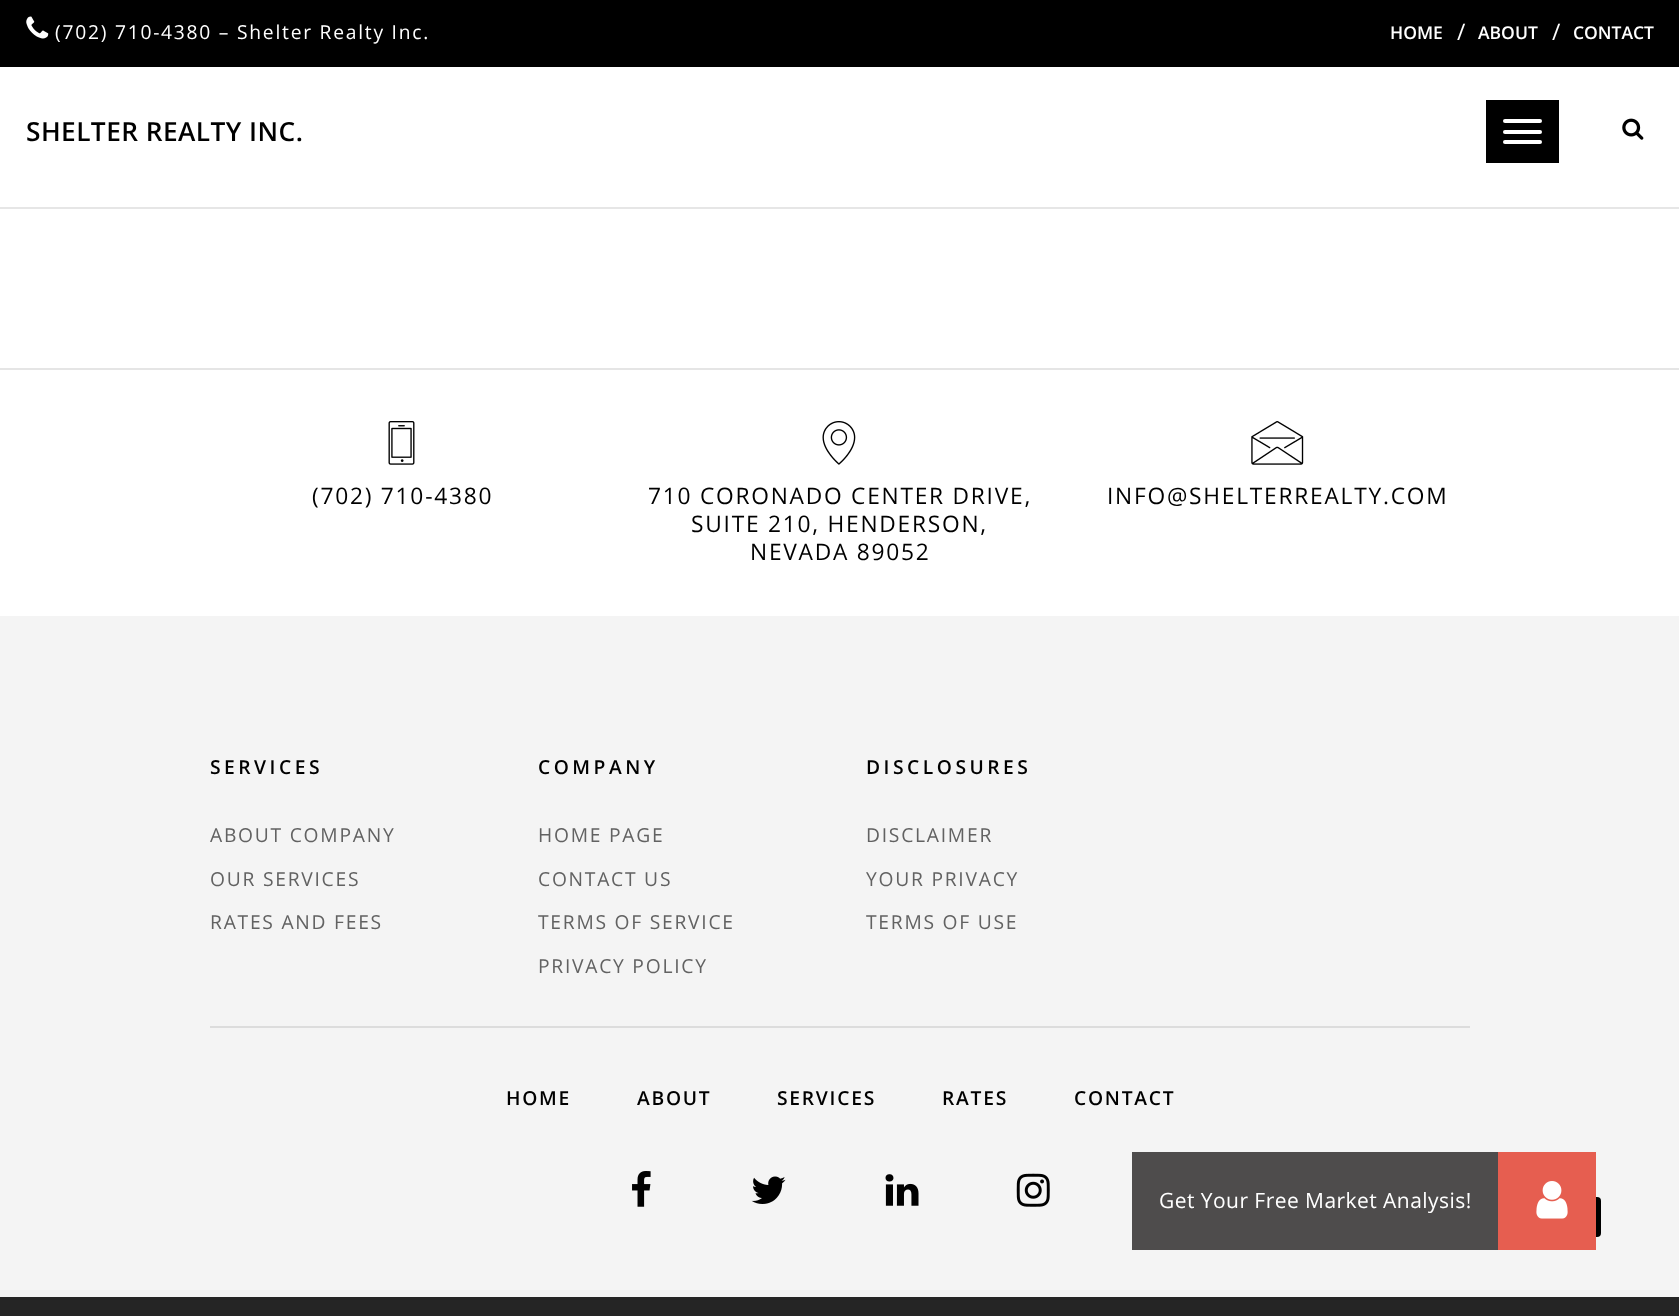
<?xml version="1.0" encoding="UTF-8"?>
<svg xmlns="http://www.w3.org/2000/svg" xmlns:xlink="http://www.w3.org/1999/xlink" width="1679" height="1316">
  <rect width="100%" height="100%" fill="#ffffff" />
  <rect width="1679" height="67" fill="#000000" />
  <image x="26" y="16" width="23" height="23" xlink:href="image1.png" />
  <rect y="207" width="1679" height="2" fill="#e6e6e6" />
  <rect x="1486" y="100" width="73" height="63" fill="#000000" />
  <rect x="1503" y="119" width="39" height="4" rx="2" fill="#ffffff" />
  <rect x="1503" y="130" width="39" height="4" rx="2" fill="#ffffff" />
  <rect x="1503" y="140" width="39" height="4" rx="2" fill="#ffffff" />
  <image x="1622" y="118" width="22" height="22" xlink:href="image2.png" />
  <rect y="616" width="1679" height="681" fill="#f4f4f4" />
  <rect y="368" width="1679" height="2" fill="#e5e5e5" />
  <image x="388" y="421" width="27" height="44" xlink:href="image3.png" />
  <image x="822" y="421" width="34" height="44" xlink:href="image4.png" />
  <image x="1251" y="421" width="53" height="44" xlink:href="image5.png" />
  <rect x="210" y="1026" width="1260" height="2" fill="#dcdcdc" />
  <image x="632" y="1171" width="19" height="36" xlink:href="image6.png" />
  <image x="751" y="1176" width="35" height="28" xlink:href="image7.png" />
  <image x="885" y="1174" width="34" height="32" xlink:href="image8.png" />
  <image x="1016" y="1173" width="34" height="34" xlink:href="image9.png" />
  <rect x="1559" y="1197" width="42" height="40" rx="4" fill="#000000" />
  <rect y="1297" width="1679" height="19" fill="#252525" />
  <rect x="1498" y="1152" width="98" height="98" fill="#e65e50" />
  <rect x="1132" y="1152" width="366" height="98" fill="#4e4c4c" />
  <image x="1536" y="1181" width="32" height="38" xlink:href="image10.png" />
  <text x="55" y="39" style="font-family: Open Sans; font-size: 19.25px; letter-spacing: 1.75px; fill: #ffffff">(702) 710-4380 – Shelter Realty Inc.</text>
  <text x="1390" y="39" style="font-family: Open Sans; font-size: 17.5px; font-weight: 600; fill: #ffffff">HOME</text>
  <text x="1457" y="40" style="font-family: Open Sans; font-size: 22.75px; letter-spacing: 0.45px; fill: #ffffff">/</text>
  <text x="1478" y="39" style="font-family: Open Sans; font-size: 17.5px; font-weight: 600; fill: #ffffff">ABOUT</text>
  <text x="1552" y="40" style="font-family: Open Sans; font-size: 22.75px; letter-spacing: 0.45px; fill: #ffffff">/</text>
  <text x="1573" y="39" style="font-family: Open Sans; font-size: 17.5px; font-weight: 600; fill: #ffffff">CONTACT</text>
  <text x="26" y="141" style="font-family: Open Sans; font-size: 26.25px; font-weight: 600; letter-spacing: 0.45px; fill: #000000">SHELTER REALTY INC.</text>
  <text x="312" y="504" style="font-family: Open Sans; font-size: 22.75px; letter-spacing: 1.75px; fill: #000000">(702) 710-4380</text>
  <text x="648" y="504" style="font-family: Open Sans; font-size: 22.75px; letter-spacing: 1.75px; fill: #000000">710 CORONADO CENTER DRIVE,</text>
  <text x="691" y="532" style="font-family: Open Sans; font-size: 22.75px; letter-spacing: 1.75px; fill: #000000">SUITE 210, HENDERSON,</text>
  <text x="750" y="560" style="font-family: Open Sans; font-size: 22.75px; letter-spacing: 1.75px; fill: #000000">NEVADA 89052</text>
  <text x="1107" y="504" style="font-family: Open Sans; font-size: 22.75px; letter-spacing: 1.75px; fill: #000000">INFO@SHELTERREALTY.COM</text>
  <text x="210" y="774" style="font-family: Open Sans; font-size: 19.25px; font-weight: 600; letter-spacing: 3.5px; fill: #000000">SERVICES</text>
  <text x="210" y="842" style="font-family: Open Sans; font-size: 19.25px; letter-spacing: 1.75px; fill: #626262">ABOUT COMPANY</text>
  <text x="210" y="886" style="font-family: Open Sans; font-size: 19.25px; letter-spacing: 1.75px; fill: #626262">OUR SERVICES</text>
  <text x="210" y="929" style="font-family: Open Sans; font-size: 19.25px; letter-spacing: 1.75px; fill: #626262">RATES AND FEES</text>
  <text x="538" y="774" style="font-family: Open Sans; font-size: 19.25px; font-weight: 600; letter-spacing: 3.5px; fill: #000000">COMPANY</text>
  <text x="538" y="842" style="font-family: Open Sans; font-size: 19.25px; letter-spacing: 1.75px; fill: #626262">HOME PAGE</text>
  <text x="538" y="886" style="font-family: Open Sans; font-size: 19.25px; letter-spacing: 1.75px; fill: #626262">CONTACT US</text>
  <text x="538" y="929" style="font-family: Open Sans; font-size: 19.25px; letter-spacing: 1.75px; fill: #626262">TERMS OF SERVICE</text>
  <text x="538" y="973" style="font-family: Open Sans; font-size: 19.25px; letter-spacing: 1.75px; fill: #626262">PRIVACY POLICY</text>
  <text x="866" y="774" style="font-family: Open Sans; font-size: 19.25px; font-weight: 600; letter-spacing: 3.5px; fill: #000000">DISCLOSURES</text>
  <text x="866" y="842" style="font-family: Open Sans; font-size: 19.25px; letter-spacing: 1.75px; fill: #626262">DISCLAIMER</text>
  <text x="866" y="886" style="font-family: Open Sans; font-size: 19.25px; letter-spacing: 1.75px; fill: #626262">YOUR PRIVACY</text>
  <text x="866" y="929" style="font-family: Open Sans; font-size: 19.25px; letter-spacing: 1.75px; fill: #626262">TERMS OF USE</text>
  <text x="506" y="1105" style="font-family: Open Sans; font-size: 19.25px; font-weight: 600; letter-spacing: 1.75px; fill: #000000">HOME</text>
  <text x="637" y="1105" style="font-family: Open Sans; font-size: 19.25px; font-weight: 600; letter-spacing: 1.75px; fill: #000000">ABOUT</text>
  <text x="777" y="1105" style="font-family: Open Sans; font-size: 19.25px; font-weight: 600; letter-spacing: 1.75px; fill: #000000">SERVICES</text>
  <text x="942" y="1105" style="font-family: Open Sans; font-size: 19.25px; font-weight: 600; letter-spacing: 1.75px; fill: #000000">RATES</text>
  <text x="1074" y="1105" style="font-family: Open Sans; font-size: 19.25px; font-weight: 600; letter-spacing: 1.75px; fill: #000000">CONTACT</text>
  <text x="1159" y="1208" style="font-family: Open Sans; font-size: 21px; letter-spacing: 0.45px; fill: #ffffff">Get Your Free Market Analysis!</text>
</svg>
